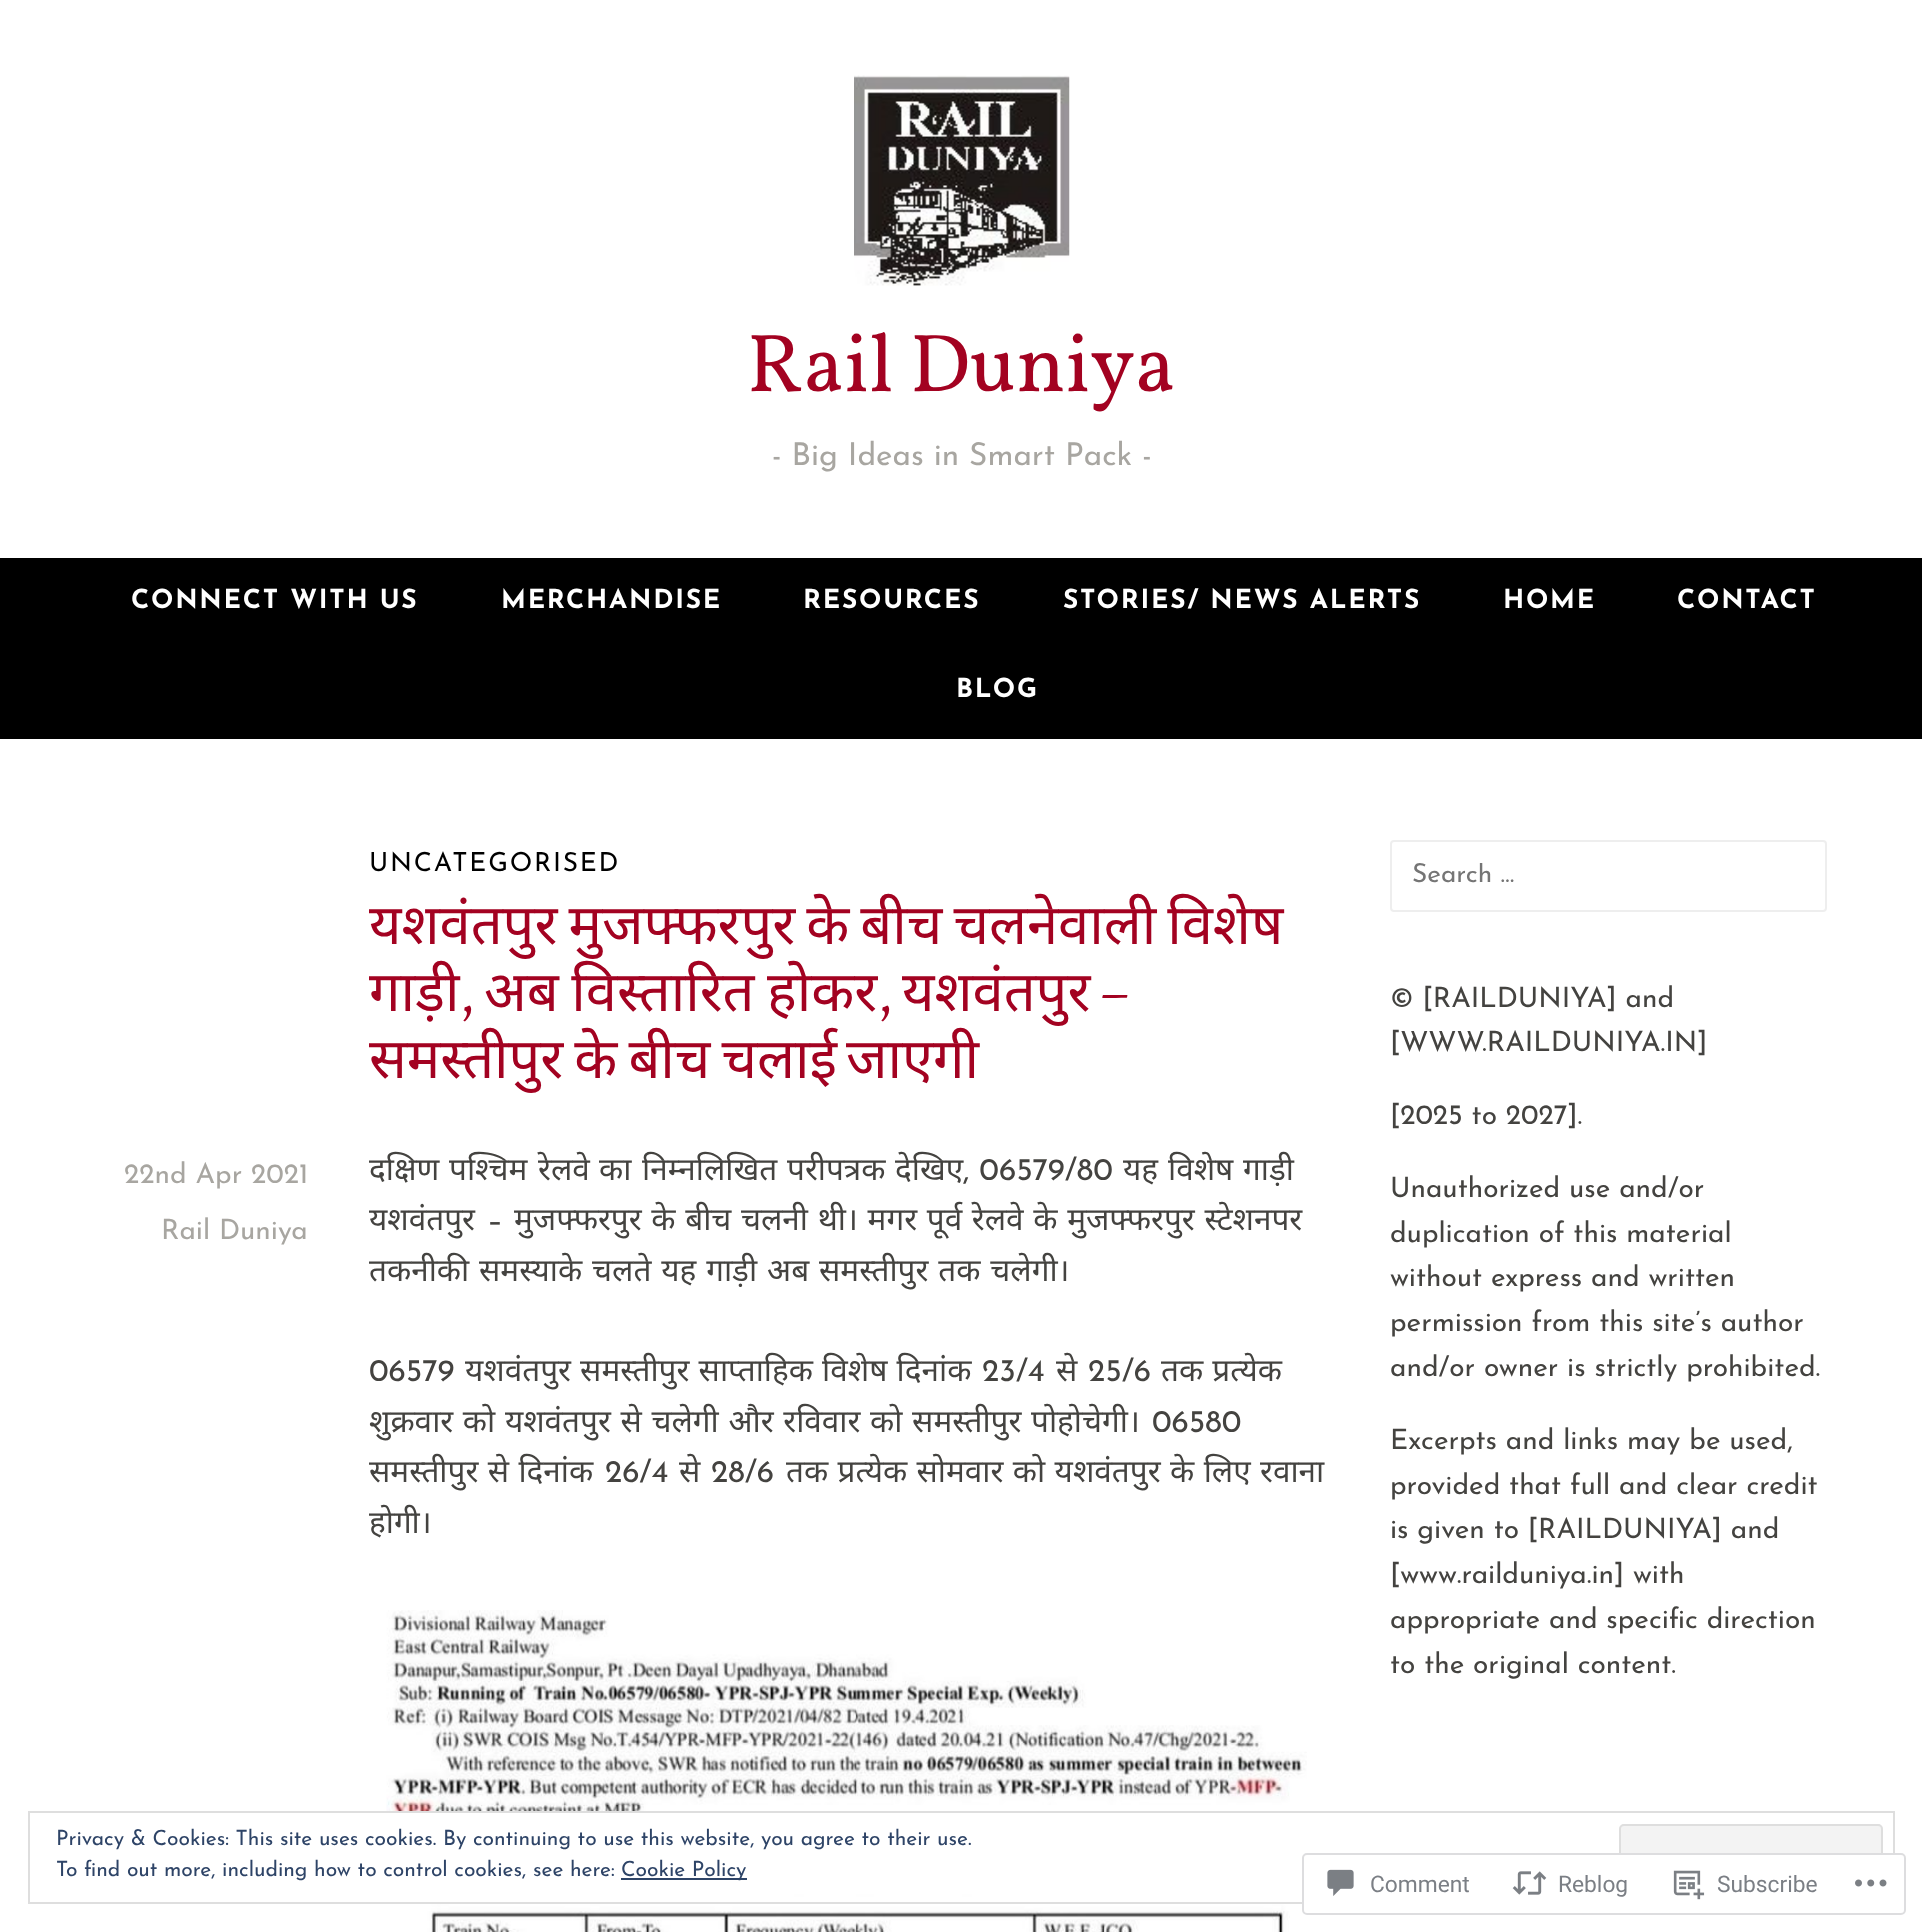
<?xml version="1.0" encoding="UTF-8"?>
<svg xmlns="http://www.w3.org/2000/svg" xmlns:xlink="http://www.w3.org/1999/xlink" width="1922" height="1932">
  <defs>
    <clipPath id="clip1"><rect x="1412" y="863" width="368" height="26" /></clipPath>
  </defs>
  <rect width="100%" height="100%" fill="#ffffff" />
  <image x="854" y="75" width="216" height="211" xlink:href="image1.png" />
  <rect y="558" width="1922" height="181" fill="#000000" />
  <image x="386" y="1610" width="921" height="322" xlink:href="image2.png" />
  <rect x="1391" y="841" width="435" height="70" rx="3" fill="none" stroke="#eeeeee" stroke-width="2" />
  <rect x="386" y="1813" width="665" height="81" fill="#ffffff" />
  <rect x="29" y="1812" width="1865" height="91" fill="none" stroke="#dedede" stroke-width="2" />
  <rect x="1619" y="1824" width="264" height="68" rx="5" fill="#f3f3f3" />
  <path d="M 1621 1885 v 1 c 0 2 2 4 4 4 h 252 c 2 0 4 -2 4 -4 v -3 c 0 2 -1 3 -3 3 h -254 c -1 0 -2 0 -3 -1 z" fill="#dbdbdb" />
  <rect x="1620" y="1825" width="262" height="66" rx="4" fill="none" stroke="#dedede" stroke-width="2" />
  <rect x="621" y="1878" width="126" height="2" fill="#2e4467" />
  <rect x="1302" y="1853" width="604" height="62" rx="5" fill="#ffffff" fill-opacity="0.98" />
  <rect x="1303" y="1854" width="602" height="60" rx="4" fill="none" stroke="#dcdcde" stroke-opacity="0.98" stroke-width="2" />
  <image x="1327" y="1869" width="27" height="27" xlink:href="image3.png" />
  <image x="1512" y="1871" width="35" height="24" xlink:href="image4.png" />
  <image x="1673" y="1870" width="32" height="30" xlink:href="image5.png" />
  <image x="1855" y="1879" width="32" height="8" xlink:href="image6.png" />
  <text x="747" y="391" style="font-family: Vollkorn; font-size: 82.25px; fill: #a30221">Rail Duniya</text>
  <text x="772" y="465" style="font-family: Josefin Sans; font-size: 31.5px; fill: #a8a6a1">- Big Ideas in Smart Pack -</text>
  <text x="131" y="608" style="font-family: Josefin Sans; font-size: 26.25px; font-weight: bold; letter-spacing: 1.75px; fill: #ffffff">CONNECT WITH US</text>
  <text x="501" y="608" style="font-family: Josefin Sans; font-size: 26.25px; font-weight: bold; letter-spacing: 1.75px; fill: #ffffff">MERCHANDISE</text>
  <text x="803" y="608" style="font-family: Josefin Sans; font-size: 26.25px; font-weight: bold; letter-spacing: 1.75px; fill: #ffffff">RESOURCES</text>
  <text x="1063" y="608" style="font-family: Josefin Sans; font-size: 26.25px; font-weight: bold; letter-spacing: 1.75px; fill: #ffffff">STORIES/ NEWS ALERTS</text>
  <text x="1503" y="608" style="font-family: Josefin Sans; font-size: 26.25px; font-weight: bold; letter-spacing: 1.75px; fill: #ffffff">HOME</text>
  <text x="1677" y="608" style="font-family: Josefin Sans; font-size: 26.25px; font-weight: bold; letter-spacing: 1.75px; fill: #ffffff">CONTACT</text>
  <text x="956" y="697" style="font-family: Josefin Sans; font-size: 26.25px; font-weight: bold; letter-spacing: 1.75px; fill: #ffffff">BLOG</text>
  <text x="369" y="871" style="font-family: Josefin Sans; font-size: 26.25px; letter-spacing: 1.75px; fill: #000000">UNCATEGORISED</text>
  <text x="369" y="944" word-spacing="-3.5" style="font-family: Noto Sans; font-size: 56px; fill: #a30221">यशवंतपुर मुजफ्फरपुर के बीच चलनेवाली विशेष</text>
  <text x="369" y="1011" style="font-family: Noto Sans; font-size: 56px; fill: #a30221">गाड़ी</text>
  <text x="484" y="1011" word-spacing="-2" style="font-family: Noto Sans; font-size: 56px; fill: #a30221">अब विस्तारित होकर</text>
  <text x="902" y="1011" style="font-family: Noto Sans; font-size: 56px; fill: #a30221">यशवंतपुर</text>
  <text x="1099" y="1011" style="font-family: Vollkorn; font-size: 56px; fill: #a30221">–</text>
  <text x="460" y="1011" style="font-family: Vollkorn; font-size: 56px; fill: #a30221">,</text>
  <text x="878" y="1011" style="font-family: Vollkorn; font-size: 56px; fill: #a30221">,</text>
  <text x="369" y="1078" word-spacing="-3.5" style="font-family: Noto Sans; font-size: 56px; fill: #a30221">समस्तीपुर के बीच चलाई</text>
  <text x="846" y="1078" style="font-family: Noto Sans; font-size: 56px; fill: #a30221">जाएगी</text>
  <text x="124" y="1183" style="font-family: Josefin Sans; font-size: 28px; fill: #a8a6a1">22nd Apr 2021</text>
  <text x="161" y="1239" style="font-family: Josefin Sans; font-size: 28px; fill: #a8a6a1">Rail Duniya</text>
  <text x="369" y="1180" style="font-family: Noto Sans; font-size: 31.5px; fill: #444340">दक्षिण</text>
  <text x="449" y="1180" style="font-family: Noto Sans; font-size: 31.5px; fill: #444340">पश्चिम</text>
  <text x="538" y="1180" style="font-family: Noto Sans; font-size: 31.5px; fill: #444340">रेलवे</text>
  <text x="599" y="1180" style="font-family: Noto Sans; font-size: 31.5px; fill: #444340">का</text>
  <text x="642" y="1180" style="font-family: Noto Sans; font-size: 31.5px; fill: #444340">निम्नलिखित</text>
  <text x="787" y="1180" style="font-family: Noto Sans; font-size: 31.5px; fill: #444340">परीपत्रक</text>
  <text x="895" y="1180" style="font-family: Noto Sans; font-size: 31.5px; fill: #444340">देखिए</text>
  <text x="963" y="1180" style="font-family: Josefin Sans; font-size: 31.5px; fill: #444340">, 06579/80</text>
  <text x="1123" y="1180" style="font-family: Noto Sans; font-size: 31.5px; fill: #444340">यह</text>
  <text x="1168" y="1180" style="font-family: Noto Sans; font-size: 31.5px; fill: #444340">विशेष</text>
  <text x="1243" y="1180" style="font-family: Noto Sans; font-size: 31.5px; fill: #444340">गाड़ी</text>
  <text x="369" y="1230" style="font-family: Noto Sans; font-size: 31.5px; fill: #444340">यशवंतपुर</text>
  <text x="487" y="1230" style="font-family: Josefin Sans; font-size: 31.5px; fill: #444340">–</text>
  <text x="514" y="1230" word-spacing="1.5" style="font-family: Noto Sans; font-size: 31.5px; fill: #444340">मुजफ्फरपुर के बीच चलनी थी। मगर पूर्व रेलवे के मुजफ्फरपुर स्टेशनपर</text>
  <text x="369" y="1281" word-spacing="1.75" style="font-family: Noto Sans; font-size: 31.5px; fill: #444340">तकनीकी समस्याके चलते यह गाड़ी अब समस्तीपुर तक चलेगी।</text>
  <text x="369" y="1381" style="font-family: Josefin Sans; font-size: 31.5px; fill: #444340">06579</text>
  <text x="465" y="1381" word-spacing="1" style="font-family: Noto Sans; font-size: 31.5px; fill: #444340">यशवंतपुर समस्तीपुर साप्ताहिक विशेष दिनांक</text>
  <text x="982" y="1381" style="font-family: Josefin Sans; font-size: 31.5px; fill: #444340">23/4</text>
  <text x="1056" y="1381" style="font-family: Noto Sans; font-size: 31.5px; fill: #444340">से</text>
  <text x="1088" y="1381" style="font-family: Josefin Sans; font-size: 31.5px; fill: #444340">25/6</text>
  <text x="1161" y="1381" word-spacing="1" style="font-family: Noto Sans; font-size: 31.5px; fill: #444340">तक प्रत्येक</text>
  <text x="369" y="1432" word-spacing="1.5" style="font-family: Noto Sans; font-size: 31.5px; fill: #444340">शुक्रवार को यशवंतपुर से चलेगी और रविवार को समस्तीपुर पोहोचेगी।</text>
  <text x="1152" y="1432" style="font-family: Josefin Sans; font-size: 31.5px; fill: #444340">06580</text>
  <text x="369" y="1482" word-spacing="1.25" style="font-family: Noto Sans; font-size: 31.5px; fill: #444340">समस्तीपुर से दिनांक</text>
  <text x="605" y="1482" style="font-family: Josefin Sans; font-size: 31.5px; fill: #444340">26/4</text>
  <text x="679" y="1482" style="font-family: Noto Sans; font-size: 31.5px; fill: #444340">से</text>
  <text x="711" y="1482" style="font-family: Josefin Sans; font-size: 31.5px; fill: #444340">28/6</text>
  <text x="786" y="1482" word-spacing="1.25" style="font-family: Noto Sans; font-size: 31.5px; fill: #444340">तक प्रत्येक सोमवार को यशवंतपुर के लिए रवाना</text>
  <text x="369" y="1533" style="font-family: Noto Sans; font-size: 31.5px; fill: #444340">होगी।</text>
  <g clip-path="url(#clip1)">
    <text x="1412" y="882" style="font-family: Josefin Sans; font-size: 26.25px; fill: #757575">Search …</text>
  </g>
  <text x="1390" y="1007" style="font-family: Josefin Sans; font-size: 28px; fill: #444340">© [RAILDUNIYA] and</text>
  <text x="1390" y="1051" style="font-family: Josefin Sans; font-size: 28px; fill: #444340">[WWW.RAILDUNIYA.IN]</text>
  <text x="1390" y="1124" style="font-family: Josefin Sans; font-size: 28px; fill: #444340">[2025 to 2027].</text>
  <text x="1390" y="1197" style="font-family: Josefin Sans; font-size: 28px; fill: #444340">Unauthorized use and/or</text>
  <text x="1390" y="1242" style="font-family: Josefin Sans; font-size: 28px; fill: #444340">duplication of this material</text>
  <text x="1390" y="1286" style="font-family: Josefin Sans; font-size: 28px; fill: #444340">without express and written</text>
  <text x="1390" y="1331" style="font-family: Josefin Sans; font-size: 28px; fill: #444340">permission from this site’s author</text>
  <text x="1390" y="1376" style="font-family: Josefin Sans; font-size: 28px; fill: #444340">and/or owner is strictly prohibited.</text>
  <text x="1390" y="1449" style="font-family: Josefin Sans; font-size: 28px; fill: #444340">Excerpts and links may be used,</text>
  <text x="1390" y="1494" style="font-family: Josefin Sans; font-size: 28px; fill: #444340">provided that full and clear credit</text>
  <text x="1390" y="1538" style="font-family: Josefin Sans; font-size: 28px; fill: #444340">is given to [RAILDUNIYA] and</text>
  <text x="1390" y="1583" style="font-family: Josefin Sans; font-size: 28px; fill: #444340">[www.railduniya.in] with</text>
  <text x="1390" y="1628" style="font-family: Josefin Sans; font-size: 28px; fill: #444340">appropriate and specific direction</text>
  <text x="1390" y="1673" style="font-family: Josefin Sans; font-size: 28px; fill: #444340">to the original content.</text>
  <text x="56" y="1845" style="font-family: Josefin Sans; font-size: 21px; fill: #2e4467">Privacy &amp; Cookies: This site uses cookies. By continuing to use this website, you agree to their use.</text>
  <text x="56" y="1876" style="font-family: Josefin Sans; font-size: 21px; fill: #2e4467">To find out more, including how to control cookies, see here:</text>
  <text x="621" y="1876" style="font-family: Josefin Sans; font-size: 21px; fill: #2e4467">Cookie Policy</text>
  <text x="1370" y="1892" style="font-family: Roboto; font-size: 22.75px; fill: #7b7f85">Comment</text>
  <text x="1558" y="1892" style="font-family: Roboto; font-size: 22.75px; fill: #7b7f85">Reblog</text>
  <text x="1717" y="1892" style="font-family: Roboto; font-size: 22.75px; fill: #7b7f85">Subscribe</text>
</svg>
